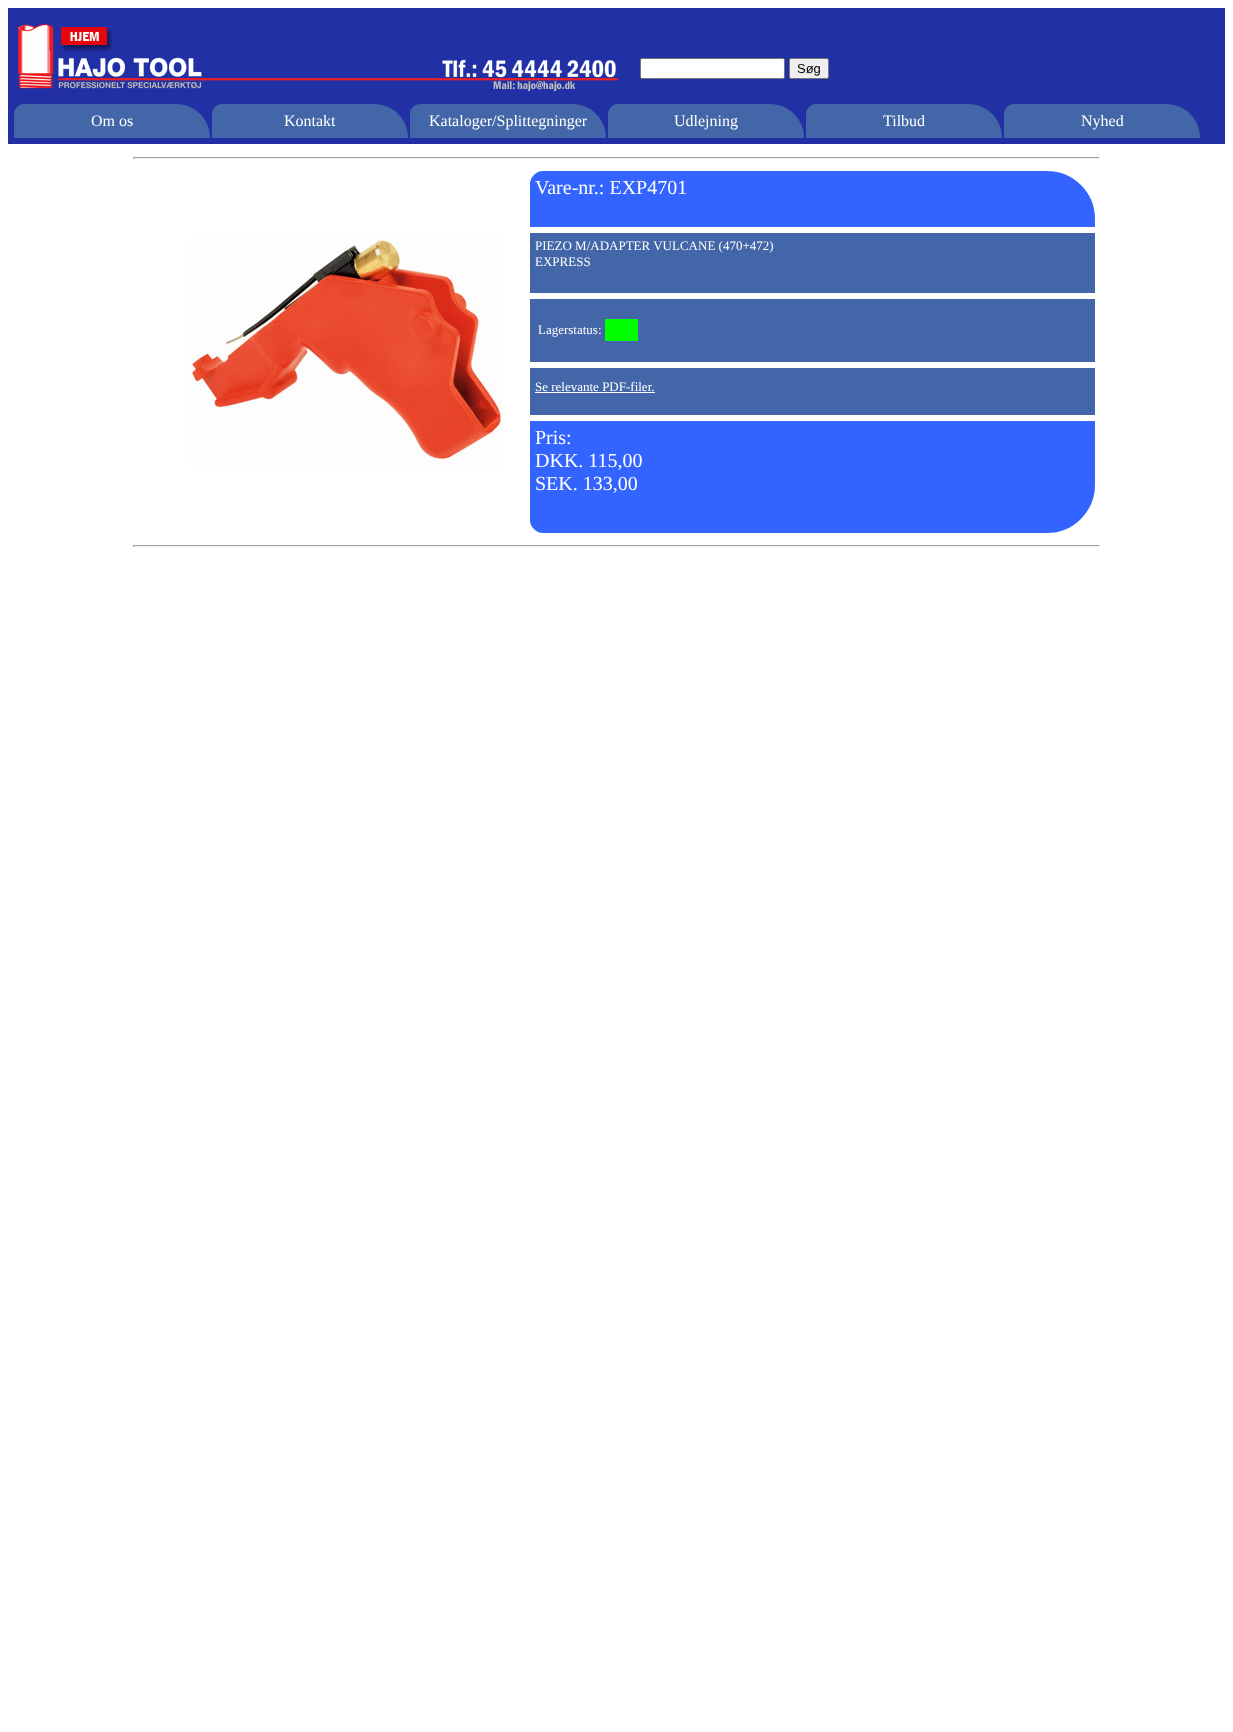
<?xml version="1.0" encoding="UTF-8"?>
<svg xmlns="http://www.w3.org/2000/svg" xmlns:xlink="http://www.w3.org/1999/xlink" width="1233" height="1732">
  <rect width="100%" height="100%" fill="#ffffff" />
  <rect x="8" y="8" width="1217" height="136" fill="#2130a5" />
  <image x="18" y="24" width="600" height="68" xlink:href="image1.png" />
  <rect x="640.5" y="58.5" width="144" height="20" rx="1.5" fill="#ffffff" stroke="#767676" />
  <rect x="789.5" y="58.5" width="39" height="20" rx="1.5" fill="#efefef" stroke="#767676" />
  <path d="M 24 104 h 152 c 19 0 34 15 34 34 h -196 v -24 c 0 -5.5 4.5 -10 10 -10 z" fill="#4266a8" />
  <path d="M 222 104 h 152 c 19 0 34 15 34 34 h -196 v -24 c 0 -5.5 4.5 -10 10 -10 z" fill="#4266a8" />
  <path d="M 420 104 h 152 c 19 0 34 15 34 34 h -196 v -24 c 0 -5.5 4.5 -10 10 -10 z" fill="#4266a8" />
  <path d="M 618 104 h 152 c 19 0 34 15 34 34 h -196 v -24 c 0 -5.5 4.5 -10 10 -10 z" fill="#4266a8" />
  <path d="M 816 104 h 152 c 19 0 34 15 34 34 h -196 v -24 c 0 -5.5 4.5 -10 10 -10 z" fill="#4266a8" />
  <path d="M 1014 104 h 152 c 19 0 34 15 34 34 h -196 v -24 c 0 -5.5 4.5 -10 10 -10 z" fill="#4266a8" />
  <rect x="133" y="157" width="967" height="1" fill="#9f9f9f" />
  <rect x="1099" y="157" width="1" height="2" fill="#eeeeee" />
  <rect x="133" y="158" width="967" height="1" fill="#eeeeee" />
  <rect x="133" y="157" width="1" height="2" fill="#9f9f9f" />
  <path d="M 543 170 h 504 c 27 0 49 22 49 49 v 9 h -567 v -44 c 0 -7.5 6.5 -14 14 -14 z" fill="#3364ff" stroke="#ffffff" stroke-width="2" />
  <image x="191" y="234" width="312" height="232" xlink:href="image2.png" />
  <rect x="530" y="233" width="565" height="60" fill="#4266a8" />
  <rect x="530" y="299" width="565" height="63" fill="#4266a8" />
  <rect x="605" y="319" width="33" height="22" fill="#00ff00" />
  <rect x="530" y="368" width="565" height="47" fill="#4266a8" />
  <rect x="535" y="392" width="120" height="1" fill="#ffffff" />
  <path d="M 529 420 h 567 v 65 c 0 27 -22 49 -49 49 h -504 c -7.5 0 -14 -6.5 -14 -14 z" fill="#3364ff" stroke="#ffffff" stroke-width="2" />
  <rect x="133" y="545" width="967" height="1" fill="#9f9f9f" />
  <rect x="1099" y="545" width="1" height="2" fill="#eeeeee" />
  <rect x="133" y="546" width="967" height="1" fill="#eeeeee" />
  <rect x="133" y="545" width="1" height="2" fill="#9f9f9f" />
  <text x="797" y="73" style="font-family: Liberation Sans; font-size: 13px; fill: #000000">Søg</text>
  <text x="91" y="126" style="font-family: Liberation Serif; font-size: 16px; fill: #ffffff">Om os</text>
  <text x="284" y="126" style="font-family: Liberation Serif; font-size: 16px; fill: #ffffff">Kontakt</text>
  <text x="429" y="126" style="font-family: Liberation Serif; font-size: 16px; fill: #ffffff">Kataloger/Splittegninger</text>
  <text x="674" y="126" style="font-family: Liberation Serif; font-size: 16px; fill: #ffffff">Udlejning</text>
  <text x="883" y="126" style="font-family: Liberation Serif; font-size: 16px; fill: #ffffff">Tilbud</text>
  <text x="1081" y="126" style="font-family: Liberation Serif; font-size: 16px; fill: #ffffff">Nyhed</text>
  <text x="535" y="194" style="font-family: Liberation Serif; font-size: 20px; fill: #ffffff">Vare-nr.: EXP4701</text>
  <text x="535" y="250" style="font-family: Liberation Serif; font-size: 13px; fill: #ffffff">PIEZO M/ADAPTER VULCANE (470+472)</text>
  <text x="535" y="266" style="font-family: Liberation Serif; font-size: 13px; fill: #ffffff">EXPRESS</text>
  <text x="538" y="334" style="font-family: Liberation Serif; font-size: 13px; fill: #ffffff">Lagerstatus:</text>
  <text x="535" y="391" style="font-family: Liberation Serif; font-size: 13px; fill: #ffffff">Se relevante PDF-filer.</text>
  <text x="535" y="444" style="font-family: Liberation Serif; font-size: 20px; fill: #ffffff">Pris:</text>
  <text x="535" y="467" style="font-family: Liberation Serif; font-size: 20px; fill: #ffffff">DKK. 115,00</text>
  <text x="535" y="490" style="font-family: Liberation Serif; font-size: 20px; fill: #ffffff">SEK. 133,00</text>
</svg>
